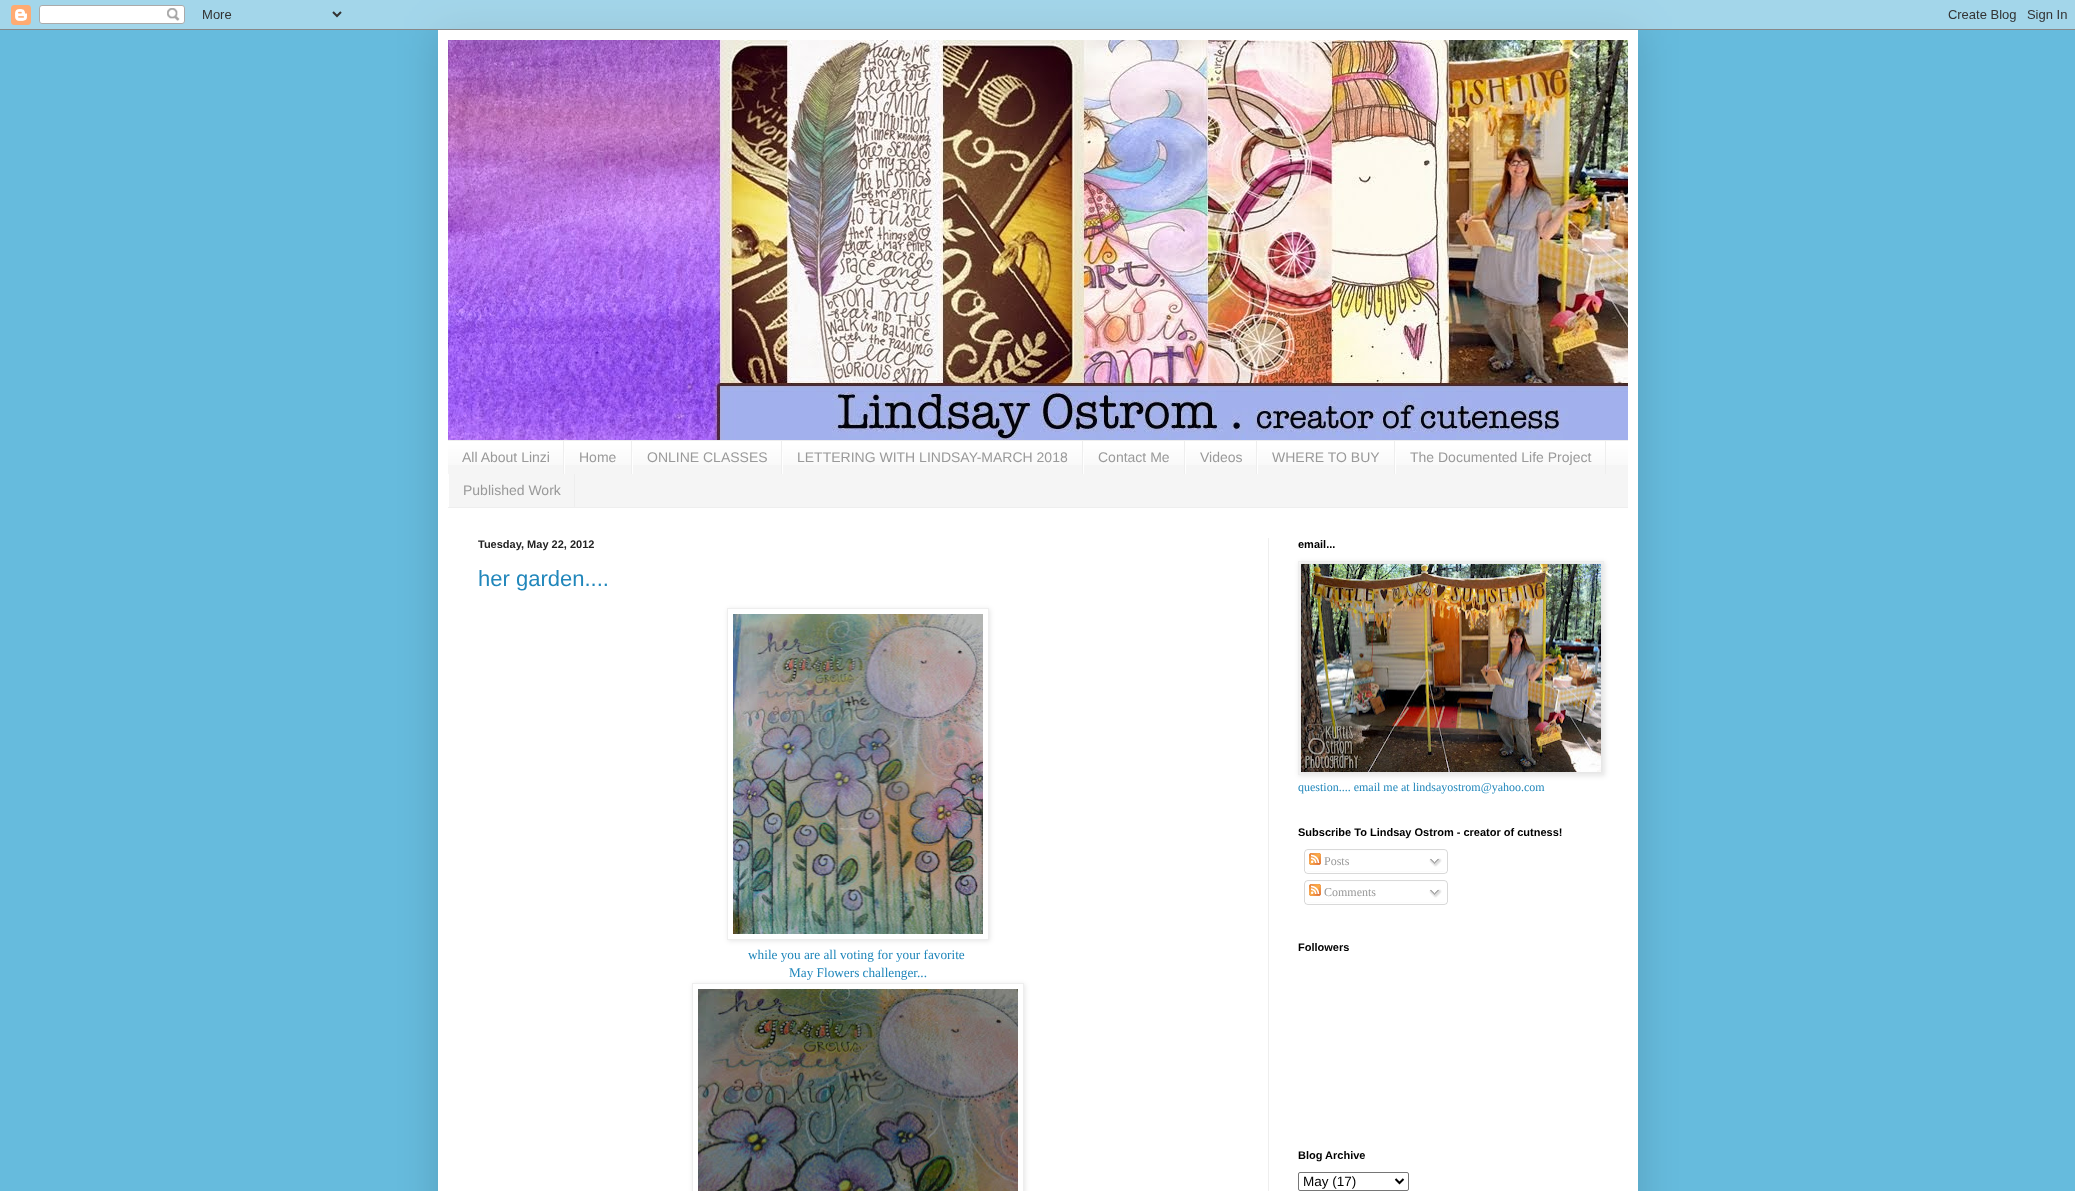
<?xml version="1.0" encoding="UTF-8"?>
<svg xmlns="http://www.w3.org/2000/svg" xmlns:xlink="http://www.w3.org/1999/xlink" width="2075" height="1191">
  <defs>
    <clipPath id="clip1"><path d="M 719 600 h 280 v 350 h -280 z m 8 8 h 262 v 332 h -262 z" clip-rule="evenodd" /></clipPath>
    <clipPath id="clip2"><path d="M 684 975 h 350 v 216 h -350 z m 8 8 h 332 v 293 h -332 z" clip-rule="evenodd" /></clipPath>
  </defs>
  <rect width="100%" height="100%" fill="#66bbdd" />
  <rect x="438" y="30" width="1200" height="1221" fill="#000000" fill-opacity="0.15" filter="blur(20px)" />
  <image x="0" y="0" width="2075" height="30" xlink:href="image1.png" />
  <rect x="438" y="30" width="1200" height="1161" fill="#ffffff" />
  <image x="448" y="40" width="1180" height="400" xlink:href="image2.png" />
  <rect x="448" y="442" width="1180" height="65" fill="#f5f5f5" />
  <image x="448" y="441" width="1180" height="24" xlink:href="image3.png" />
  <rect x="448" y="440" width="1180" height="1" fill="#eeeeee" />
  <rect x="448" y="507" width="1180" height="1" fill="#eeeeee" />
  <rect x="563" y="441" width="1" height="33" fill="#eeeeee" />
  <rect x="631" y="441" width="1" height="33" fill="#eeeeee" />
  <rect x="564" y="452" width="1" height="22" fill="#ffffff" />
  <rect x="781" y="441" width="1" height="33" fill="#eeeeee" />
  <rect x="632" y="452" width="1" height="22" fill="#ffffff" />
  <rect x="1082" y="441" width="1" height="33" fill="#eeeeee" />
  <rect x="782" y="452" width="1" height="22" fill="#ffffff" />
  <rect x="1184" y="441" width="1" height="33" fill="#eeeeee" />
  <rect x="1083" y="452" width="1" height="22" fill="#ffffff" />
  <rect x="1256" y="441" width="1" height="33" fill="#eeeeee" />
  <rect x="1185" y="452" width="1" height="22" fill="#ffffff" />
  <rect x="1394" y="441" width="1" height="33" fill="#eeeeee" />
  <rect x="1257" y="452" width="1" height="22" fill="#ffffff" />
  <rect x="1605" y="441" width="1" height="33" fill="#eeeeee" />
  <rect x="1395" y="452" width="1" height="22" fill="#ffffff" />
  <rect x="574" y="474" width="1" height="33" fill="#eeeeee" />
  <rect x="448" y="474" width="1" height="33" fill="#ffffff" />
  <rect x="1268" y="538" width="1" height="653" fill="#eeeeee" />
  <g clip-path="url(#clip1)">
    <rect x="728" y="609" width="262" height="332" fill="#000000" fill-opacity="0.1" filter="blur(2.5px)" />
  </g>
  <rect x="727.5" y="608.5" width="261" height="331" fill="none" stroke="#eeeeee" />
  <image x="733" y="614" width="250" height="320" xlink:href="image4.png" />
  <g clip-path="url(#clip2)">
    <rect x="693" y="984" width="332" height="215" fill="#000000" fill-opacity="0.1" filter="blur(2.5px)" />
  </g>
  <rect x="692.5" y="983.5" width="331" height="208" fill="none" stroke="#eeeeee" />
  <image x="698" y="989" width="320" height="202" xlink:href="image5.png" />
  <rect x="1299" y="562" width="306" height="214" fill="#000000" fill-opacity="0.1" filter="blur(2.5px)" />
  <rect x="1298.5" y="561.5" width="305" height="213" fill="none" stroke="#eeeeee" />
  <image x="1301" y="564" width="300" height="208" xlink:href="image6.png" />
  <image x="1304" y="849" width="144" height="22" xlink:href="image7.png" />
  <image x="1309" y="853" width="12" height="12" xlink:href="image8.png" />
  <image x="1429" y="858" width="13" height="9" xlink:href="image9.png" />
  <image x="1304" y="871" width="144" height="3" xlink:href="image10.png" />
  <image x="1304" y="880" width="144" height="22" xlink:href="image7.png" />
  <image x="1309" y="884" width="12" height="12" xlink:href="image8.png" />
  <image x="1429" y="889" width="13" height="9" xlink:href="image9.png" />
  <image x="1304" y="902" width="144" height="3" xlink:href="image10.png" />
  <rect x="1298.5" y="1172.5" width="110" height="18" rx="1.5" fill="none" stroke="#767676" />
  <path d="M 1395.5 1179 l 4 4 l 4 -4" fill="none" stroke="#000000" stroke-width="2" />
  <text x="462" y="462" style="font-family: Liberation Sans; font-size: 14px; fill: #999999">All About Linzi</text>
  <text x="579" y="462" style="font-family: Liberation Sans; font-size: 14px; fill: #999999">Home</text>
  <text x="647" y="462" style="font-family: Liberation Sans; font-size: 14px; fill: #999999">ONLINE CLASSES</text>
  <text x="797" y="462" style="font-family: Liberation Sans; font-size: 14px; fill: #999999">LETTERING WITH LINDSAY-MARCH 2018</text>
  <text x="1098" y="462" style="font-family: Liberation Sans; font-size: 14px; fill: #999999">Contact Me</text>
  <text x="1200" y="462" style="font-family: Liberation Sans; font-size: 14px; fill: #999999">Videos</text>
  <text x="1272" y="462" style="font-family: Liberation Sans; font-size: 14px; fill: #999999">WHERE TO BUY</text>
  <text x="1410" y="462" style="font-family: Liberation Sans; font-size: 14px; fill: #999999">The Documented Life Project</text>
  <text x="463" y="495" style="font-family: Liberation Sans; font-size: 14px; fill: #999999">Published Work</text>
  <text x="478" y="548" style="font-family: Liberation Sans; font-size: 11px; font-weight: bold; fill: #222222">Tuesday, May 22, 2012</text>
  <text x="478" y="586" style="font-family: Liberation Sans; font-size: 22px; fill: #2187bb">her garden....</text>
  <text x="748" y="959" style="font-family: Liberation Serif; font-size: 13.25px; fill: #2187bb">while you are all voting for your favorite</text>
  <text x="789" y="977" style="font-family: Liberation Serif; font-size: 13.25px; fill: #2187bb">May Flowers challenger...</text>
  <text x="1298" y="548" style="font-family: Liberation Sans; font-size: 11px; font-weight: bold; fill: #000000">email...</text>
  <text x="1298" y="791" style="font-family: Liberation Serif; font-size: 12px; fill: #2187bb">question.... email me at lindsayostrom@yahoo.com</text>
  <text x="1298" y="836" style="font-family: Liberation Sans; font-size: 11px; font-weight: bold; fill: #000000">Subscribe To Lindsay Ostrom - creator of cutness!</text>
  <text x="1324" y="865" style="font-family: Liberation Serif; font-size: 12px; fill: #999999">Posts</text>
  <text x="1324" y="896" style="font-family: Liberation Serif; font-size: 12px; fill: #999999">Comments</text>
  <text x="1298" y="951" style="font-family: Liberation Sans; font-size: 11px; font-weight: bold; fill: #000000">Followers</text>
  <text x="1298" y="1159" style="font-family: Liberation Sans; font-size: 11px; font-weight: bold; fill: #000000">Blog Archive</text>
  <text x="1303" y="1186" style="font-family: Liberation Sans; font-size: 13.5px; fill: #000000">May (17)</text>
</svg>
